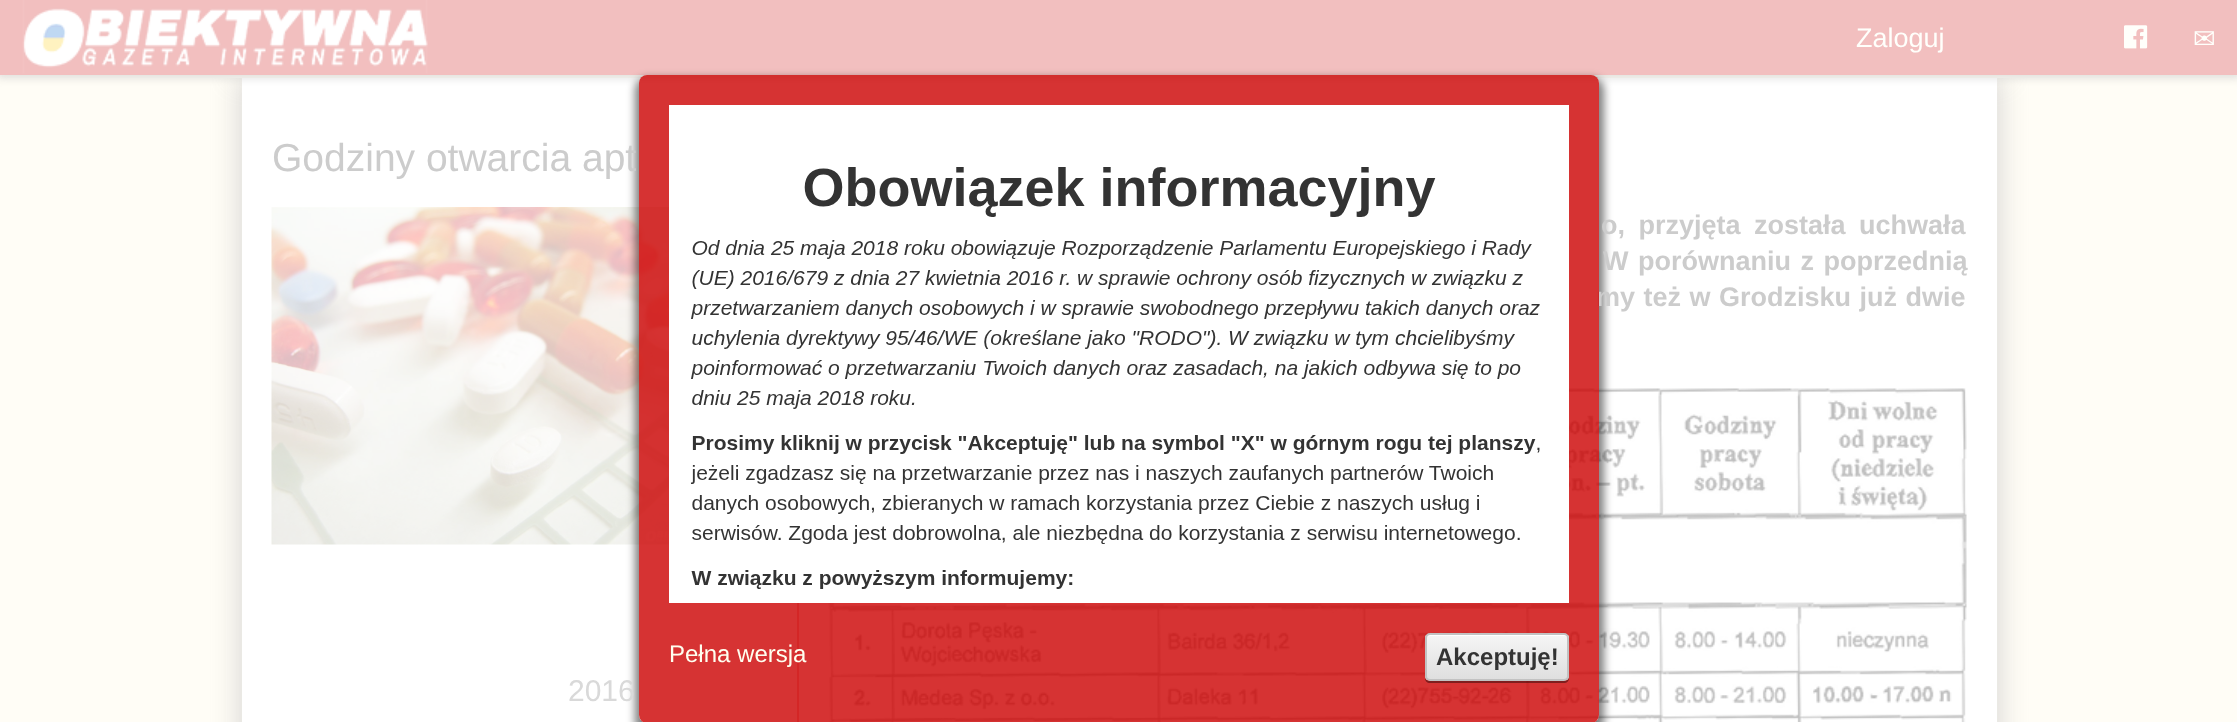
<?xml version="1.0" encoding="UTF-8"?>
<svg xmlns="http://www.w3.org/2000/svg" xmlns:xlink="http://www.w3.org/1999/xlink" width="2237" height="722">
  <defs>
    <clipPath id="clip1"><rect x="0" y="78" width="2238" height="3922" /></clipPath>
    <clipPath id="clip2"><path d="M 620 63 h 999 v 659 h -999 z m 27 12 h 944 c 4.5 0 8 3.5 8 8 v 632 c 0 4.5 -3.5 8 -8 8 h -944 c -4.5 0 -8 -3.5 -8 -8 v -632 c 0 -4.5 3.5 -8 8 -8 z" clip-rule="evenodd" /></clipPath>
    <clipPath id="clip3"><rect x="1425" y="633" width="144" height="48" rx="5" /></clipPath>
    <linearGradient id="g1" gradientUnits="userSpaceOnUse" x1="1497" y1="635" x2="1497" y2="680"><stop offset="0" stop-color="#f5f5f5" /><stop offset="1" stop-color="#dfdfdf" /></linearGradient>
  </defs>
  <rect width="100%" height="100%" fill="#fffdf6" />
  <g clip-path="url(#clip1)">
    <rect x="239" y="75" width="1761" height="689" fill="#bfbfbf" fill-opacity="0.6" filter="blur(14px)" />
  </g>
  <rect x="242" y="78" width="1755" height="644" fill="#ffffff" />
  <rect x="-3" y="-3" width="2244" height="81" fill="#bfbfbf" fill-opacity="0.5" filter="blur(4px)" />
  <rect width="2237" height="75" fill="#f2bfbf" />
  <image x="22" y="0" width="406" height="74" xlink:href="image1.png" />
  <image x="2124" y="25" width="24" height="24" xlink:href="image2.png" />
  <rect x="797" y="603" width="2" height="119" fill="#f2bfbf" />
  <image x="828" y="388" width="1139" height="334" xlink:href="image3.png" />
  <image x="271" y="207" width="398" height="338" xlink:href="image4.png" />
  <g clip-path="url(#clip2)">
    <rect x="635" y="78" width="969" height="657" rx="12" fill="#000000" fill-opacity="0.5" filter="blur(4.5px)" />
  </g>
  <text x="1856" y="47" style="font-family: Liberation Sans; font-size: 27px; fill: #fffffb">Zaloguj</text>
  <text x="2193" y="48" style="font-family: DejaVu Sans; font-size: 27px; fill: #fffffb">✉</text>
  <text x="272" y="171" style="font-family: Liberation Sans; font-size: 39px; fill: #cccccc">Godziny otwarcia apt</text>
  <text x="1601" y="234" word-spacing="6" style="font-family: Liberation Sans; font-size: 27px; font-weight: bold; fill: #cccccc">o, przyjęta została uchwała</text>
  <text x="1603" y="270" word-spacing="2" style="font-family: Liberation Sans; font-size: 27px; font-weight: bold; fill: #cccccc">W porównaniu z poprzednią</text>
  <text x="1596" y="306" word-spacing="1" style="font-family: Liberation Sans; font-size: 27px; font-weight: bold; fill: #cccccc">my też w Grodzisku już dwie</text>
  <text x="568" y="701" style="font-family: Liberation Sans; font-size: 30px; fill: #d9d9d9">2016</text>
  <rect x="639" y="75" width="960" height="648" rx="8" fill="#cc0000" fill-opacity="0.8" />
  <image x="669" y="105" width="900" height="498" xlink:href="image5.png" />
  <text x="669" y="662" style="font-family: Liberation Sans; font-size: 24px; fill: #fffff0">Pełna wersja</text>
  <path d="M 1425 676 v 2 c 0 3 2 5 5 5 h 134 c 3 0 5 -2 5 -5 v -2 c 0 3 -2 5 -5 5 h -134 c -3 0 -5 -2 -5 -5 z" fill="#000000" fill-opacity="0.4" />
  <g clip-path="url(#clip3)">
    <rect x="1425" y="635" width="144" height="45" fill="url(#g1)" />
  </g>
  <path d="M 1430 636 h 134 c 2 0 4 1 4 3 v -1 c 0 -2 -1 -3 -3 -3 h -135 c -1 0 -2 1 -3 2 z" fill="#ffffff" />
  <rect x="1426" y="634" width="142" height="46" rx="4" fill="none" stroke="#c2c2c2" stroke-width="2" />
  <text x="1436" y="665" style="font-family: Liberation Sans; font-size: 24px; font-weight: bold; fill: #333333">Akceptuję!</text>
</svg>
